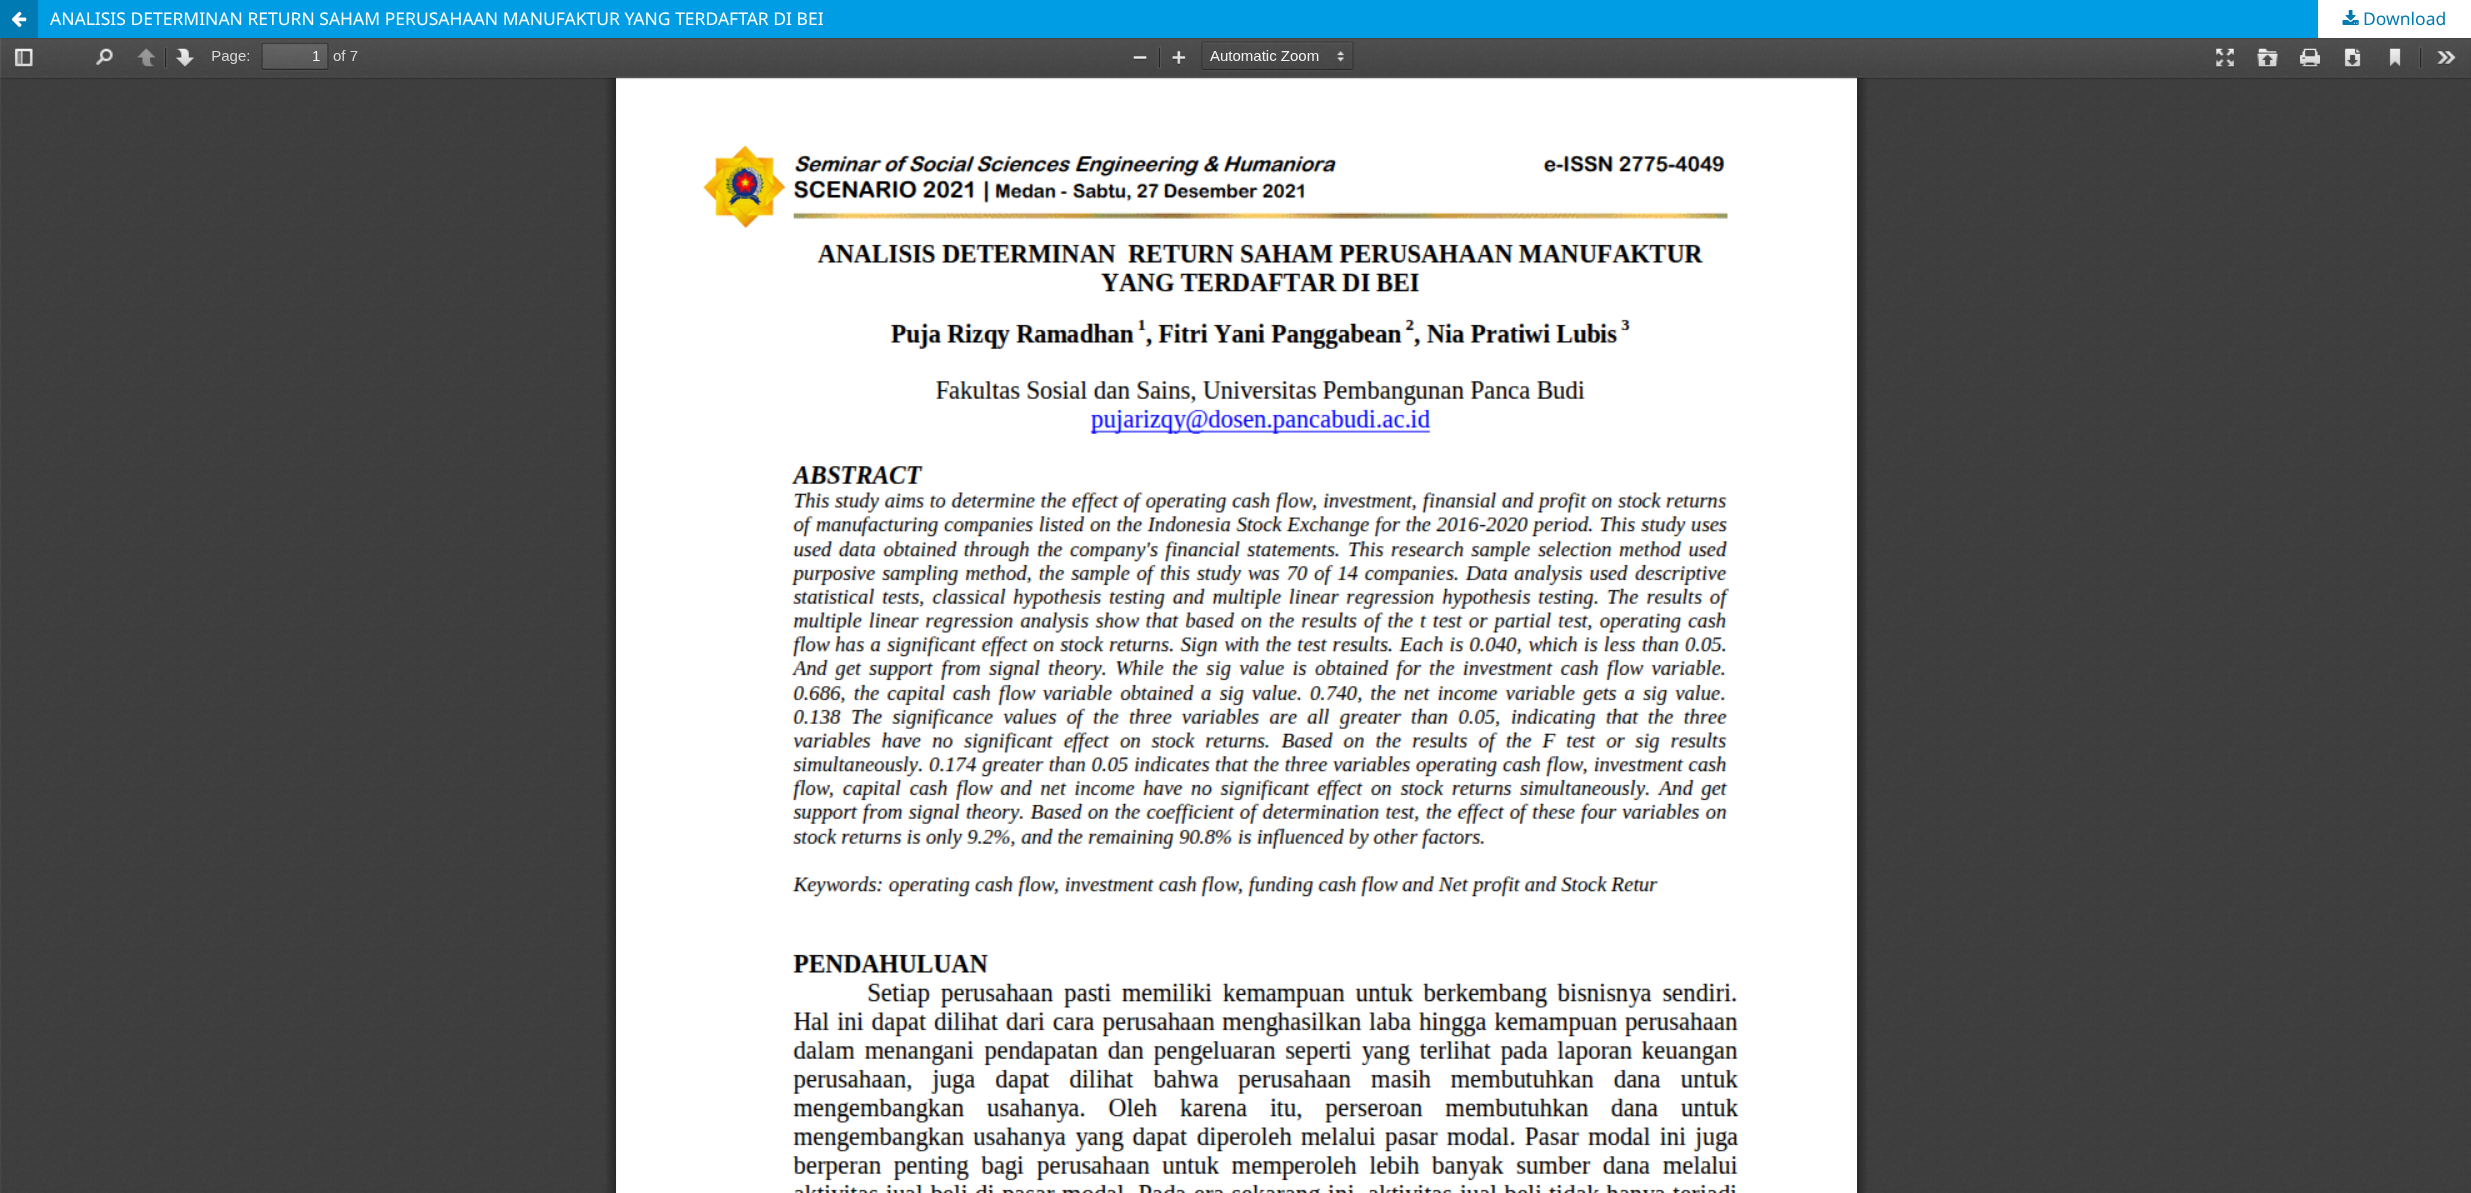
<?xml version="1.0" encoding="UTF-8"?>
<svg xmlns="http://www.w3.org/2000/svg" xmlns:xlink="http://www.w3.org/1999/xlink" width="2471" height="1193">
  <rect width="100%" height="100%" fill="#ffffff" />
  <rect x="38" width="2280" height="38" fill="#009de5" />
  <rect width="38" height="38" fill="#007ab2" />
  <image x="11" y="11" width="16" height="16" xlink:href="image1.png" />
  <image x="2342" y="10" width="17" height="15" xlink:href="image2.png" />
  <image x="0" y="38" width="2471" height="1155" xlink:href="image3.png" />
  <text x="50" y="25" style="font-family: Noto Sans; font-size: 17.5px; fill: #ffffff">ANALISIS DETERMINAN RETURN SAHAM PERUSAHAAN MANUFAKTUR YANG TERDAFTAR DI BEI</text>
  <text x="2363" y="25" style="font-family: Noto Sans; font-size: 17.5px; fill: #007ab2">Download</text>
</svg>
